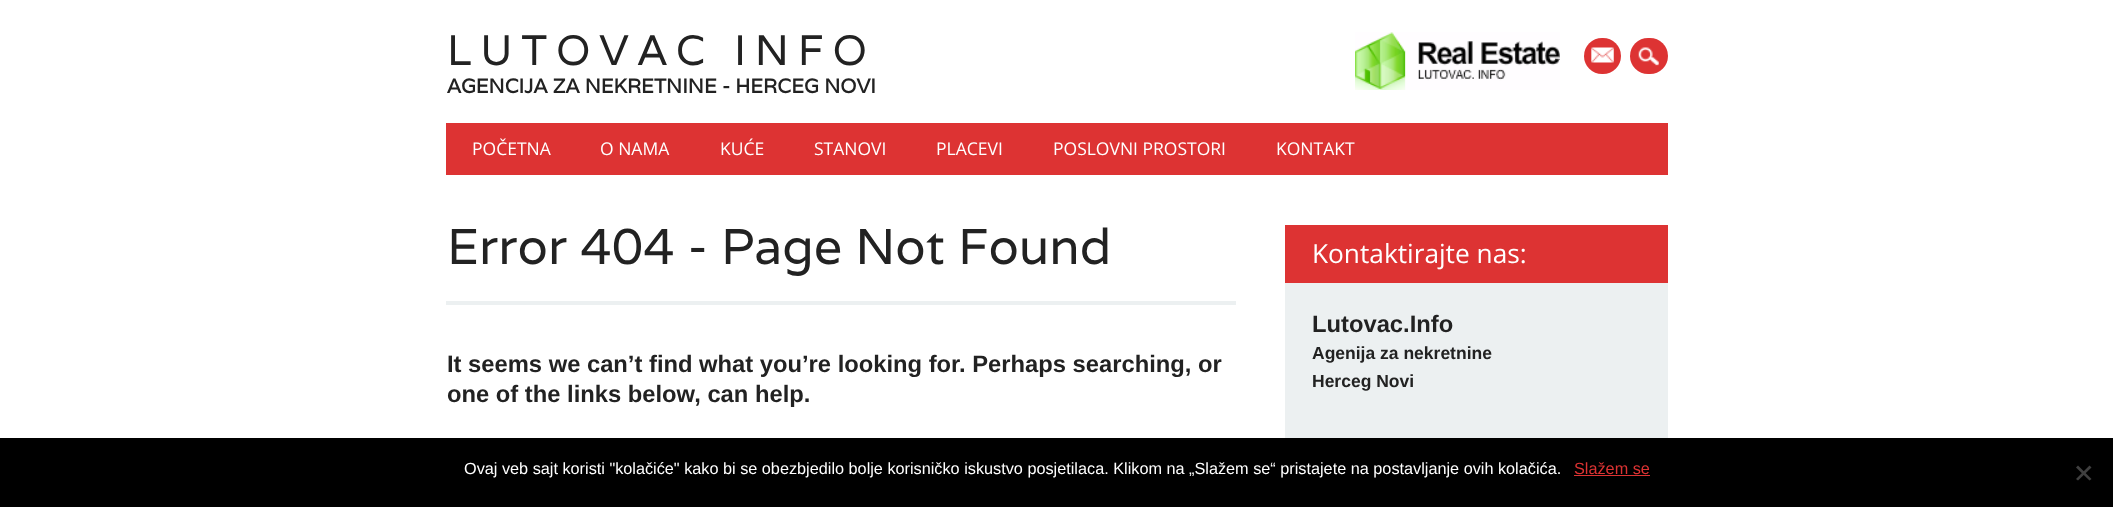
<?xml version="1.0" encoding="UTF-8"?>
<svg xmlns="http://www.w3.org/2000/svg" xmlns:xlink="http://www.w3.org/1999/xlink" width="2113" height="507">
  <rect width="100%" height="100%" fill="#ffffff" />
  <image x="1355" y="32" width="205" height="58" xlink:href="image1.png" />
  <rect x="1584" y="38" width="37" height="36" rx="18" fill="#dd3333" />
  <image x="1591" y="47" width="23" height="16" xlink:href="image2.png" />
  <rect x="1630" y="38" width="38" height="36" rx="18" fill="#dd3333" />
  <image x="1638" y="47" width="21" height="19" xlink:href="image3.png" />
  <rect x="446" y="123" width="1222" height="52" fill="#dd3333" />
  <rect x="446" y="301" width="790" height="4" fill="#ecf0f1" />
  <rect x="1285" y="283" width="383" height="155" fill="#ecf0f1" />
  <rect x="1285" y="225" width="383" height="58" fill="#dd3333" />
  <rect y="438" width="2113" height="69" fill="#000000" />
  <rect x="1574" y="475" width="76" height="1" fill="#dd3333" />
  <path d="M 2089.5 465.5 l 2 2 l -13.5 13 l -2 -1.5 z" fill="#404040" />
  <path d="M 2076 467.5 l 2 -2 l 13.5 13.5 l -2 1.5 z" fill="#404040" />
  <text x="447" y="65" style="font-family: Varela; font-size: 42.5px; letter-spacing: 8.75px; fill: #222222">LUTOVAC INFO</text>
  <text x="447" y="93" style="font-family: Varela; font-size: 20px; font-weight: bold; fill: #222222">AGENCIJA ZA NEKRETNINE - HERCEG NOVI</text>
  <text x="472" y="155" style="font-family: Open Sans; font-size: 17.5px; fill: #ffffff">POČETNA</text>
  <text x="600" y="155" style="font-family: Open Sans; font-size: 17.5px; fill: #ffffff">O NAMA</text>
  <text x="720" y="155" style="font-family: Open Sans; font-size: 17.5px; fill: #ffffff">KUĆE</text>
  <text x="814" y="155" style="font-family: Open Sans; font-size: 17.5px; fill: #ffffff">STANOVI</text>
  <text x="936" y="155" style="font-family: Open Sans; font-size: 17.5px; fill: #ffffff">PLACEVI</text>
  <text x="1053" y="155" style="font-family: Open Sans; font-size: 17.5px; fill: #ffffff">POSLOVNI PROSTORI</text>
  <text x="1276" y="155" style="font-family: Open Sans; font-size: 17.5px; fill: #ffffff">KONTAKT</text>
  <text x="447" y="264" style="font-family: Varela; font-size: 50px; fill: #222222">Error 404 - Page Not Found</text>
  <text x="447" y="372" style="font-family: Liberation Sans; font-size: 23.75px; font-weight: bold; fill: #222222">It seems we can’t find what you’re looking for. Perhaps searching, or</text>
  <text x="447" y="402" style="font-family: Liberation Sans; font-size: 23.75px; font-weight: bold; fill: #222222">one of the links below, can help.</text>
  <text x="1312" y="263" style="font-family: Open Sans; font-size: 26.25px; fill: #ffffff">Kontaktirajte nas:</text>
  <text x="1312" y="332" style="font-family: Liberation Sans; font-size: 23.75px; font-weight: bold; fill: #222222">Lutovac.Info</text>
  <text x="1312" y="359" style="font-family: Liberation Sans; font-size: 17.5px; font-weight: bold; fill: #222222">Agenija za nekretnine</text>
  <text x="1312" y="387" style="font-family: Liberation Sans; font-size: 17.5px; font-weight: bold; fill: #222222">Herceg Novi</text>
  <text x="464" y="474" style="font-family: Liberation Sans; font-size: 16.25px; fill: #ffffff">Ovaj veb sajt koristi "kolačiće" kako bi se obezbjedilo bolje korisničko iskustvo posjetilaca. Klikom na „Slažem se“ pristajete na postavljanje ovih kolačića.</text>
  <text x="1574" y="474" style="font-family: Liberation Sans; font-size: 16.25px; fill: #dd3333">Slažem se</text>
</svg>
